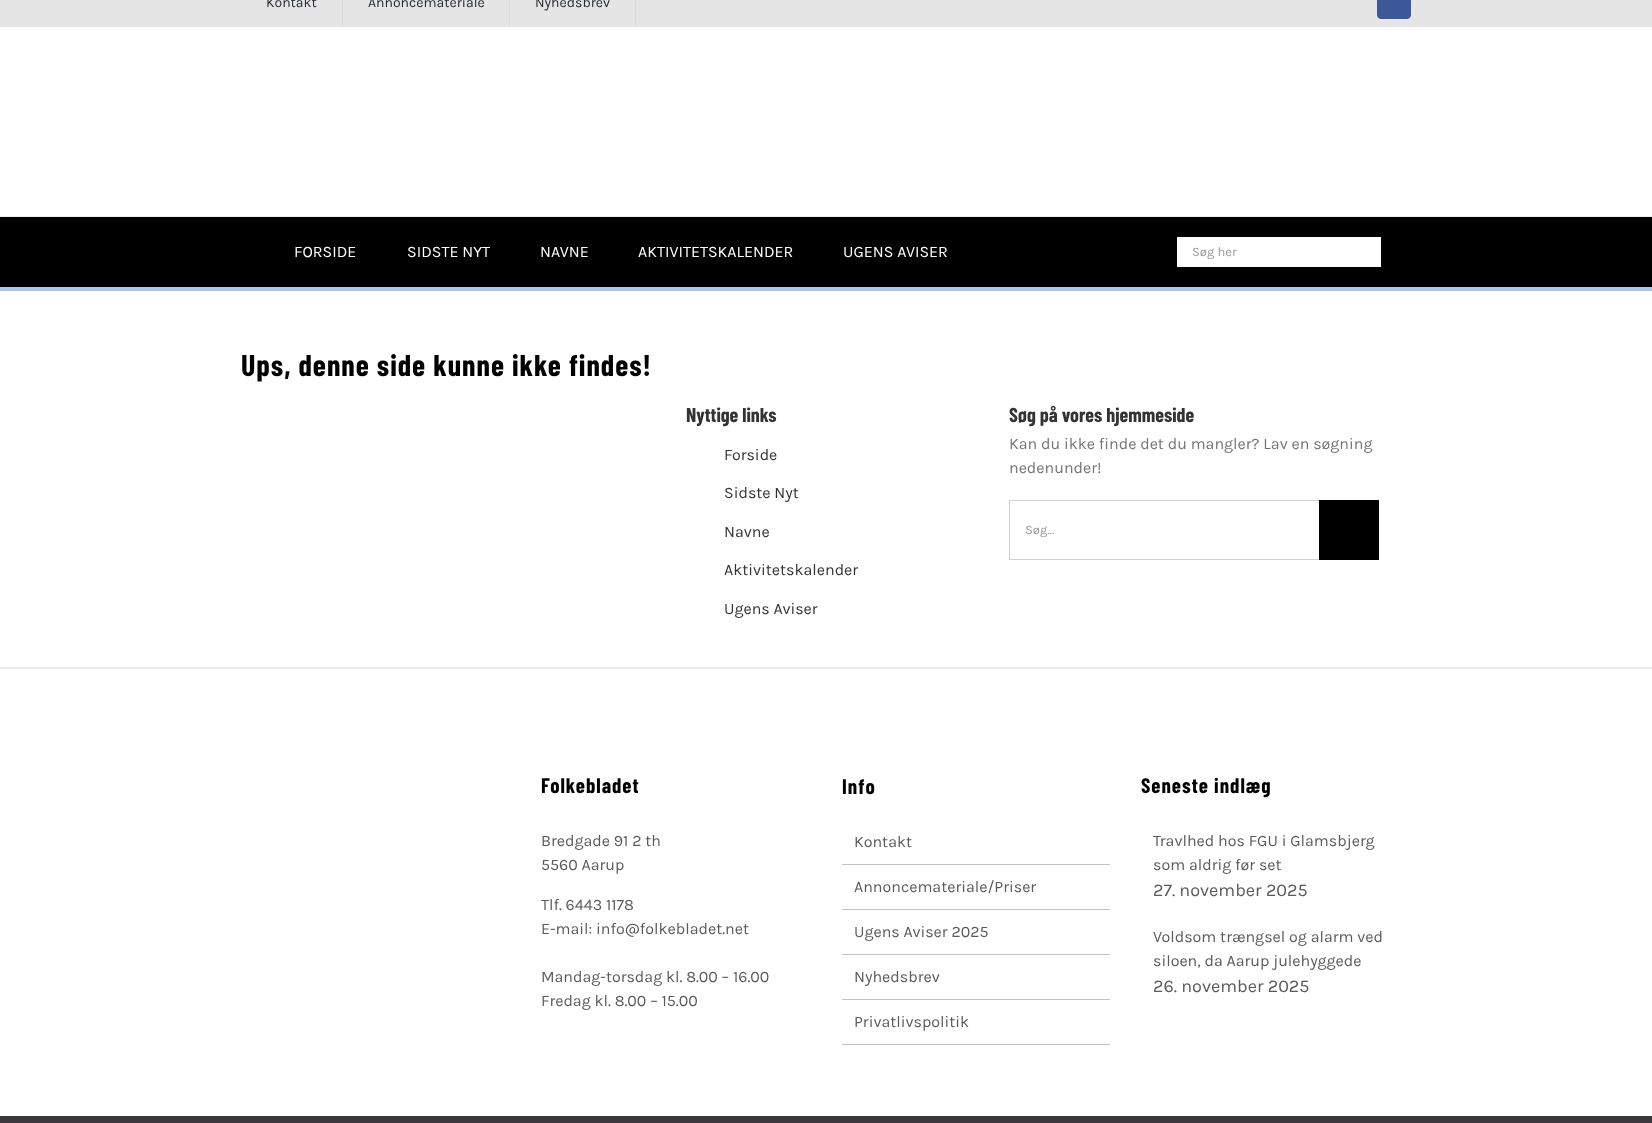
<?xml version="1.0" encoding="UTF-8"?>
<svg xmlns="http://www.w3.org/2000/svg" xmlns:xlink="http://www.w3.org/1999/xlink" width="1652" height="1123">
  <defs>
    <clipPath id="clip1"><rect x="1192" y="244" width="161" height="15" /></clipPath>
    <clipPath id="clip2"><rect x="1025" y="522" width="266" height="15" /></clipPath>
  </defs>
  <rect width="100%" height="100%" fill="#ffffff" />
  <rect width="1652" height="27" fill="#e5e5e5" />
  <rect x="342" width="1" height="27" fill="#dddddd" />
  <rect x="509" width="1" height="27" fill="#dddddd" />
  <rect x="635" width="1" height="27" fill="#dddddd" />
  <rect x="1377.5" y="-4.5" width="33" height="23" rx="3.5" fill="#3b5998" stroke="#3b5998" />
  <rect y="216" width="1652" height="1" fill="#ededed" />
  <rect y="217" width="1652" height="70" fill="#000000" />
  <rect y="287" width="1652" height="4" fill="#afc6e4" />
  <rect x="1177" y="237" width="204" height="30" fill="#ffffff" />
  <rect x="1009" y="500" width="310" height="1" fill="#d2d2d2" />
  <rect x="1009" y="559" width="310" height="1" fill="#d2d2d2" />
  <rect x="1009" y="500" width="1" height="60" fill="#d2d2d2" />
  <rect x="1319" y="500" width="60" height="60" fill="#000000" />
  <rect y="667" width="1652" height="2" fill="#e9eaee" />
  <rect x="842" y="864" width="268" height="1" fill="#c1c1c1" />
  <rect x="842" y="909" width="268" height="1" fill="#c1c1c1" />
  <rect x="842" y="954" width="268" height="1" fill="#c1c1c1" />
  <rect x="842" y="999" width="268" height="1" fill="#c1c1c1" />
  <rect x="842" y="1044" width="268" height="1" fill="#c1c1c1" />
  <rect y="1116" width="1652" height="7" fill="#3b393d" />
  <text x="266" y="7" style="font-family: Karla; font-size: 14px; fill: #212934">Kontakt</text>
  <text x="368" y="7" style="font-family: Karla; font-size: 14px; fill: #212934">Annoncemateriale</text>
  <text x="535" y="7" style="font-family: Karla; font-size: 14px; fill: #212934">Nyhedsbrev</text>
  <text x="294" y="257" style="font-family: Karla; font-size: 16px; fill: #ffffff">FORSIDE</text>
  <text x="407" y="257" style="font-family: Karla; font-size: 16px; fill: #ffffff">SIDSTE NYT</text>
  <text x="540" y="257" style="font-family: Karla; font-size: 16px; fill: #ffffff">NAVNE</text>
  <text x="638" y="257" style="font-family: Karla; font-size: 16px; fill: #ffffff">AKTIVITETSKALENDER</text>
  <text x="843" y="257" style="font-family: Karla; font-size: 16px; fill: #ffffff">UGENS AVISER</text>
  <g clip-path="url(#clip1)">
    <text x="1192" y="256" style="font-family: Karla; font-size: 13px; fill: #9a9a9a">Søg her</text>
  </g>
  <text x="241" y="376" style="font-family: Barlow Condensed; font-size: 30px; font-weight: bold; letter-spacing: 1px; fill: #000000">Ups, denne side kunne ikke findes!</text>
  <text x="686" y="422" style="font-family: Barlow Condensed; font-size: 20px; font-weight: bold; fill: #333333">Nyttige links</text>
  <text x="724" y="460" style="font-family: Karla; font-size: 16px; fill: #333333">Forside</text>
  <text x="724" y="498" style="font-family: Karla; font-size: 16px; fill: #333333">Sidste Nyt</text>
  <text x="724" y="537" style="font-family: Karla; font-size: 16px; fill: #333333">Navne</text>
  <text x="724" y="575" style="font-family: Karla; font-size: 16px; fill: #333333">Aktivitetskalender</text>
  <text x="724" y="614" style="font-family: Karla; font-size: 16px; fill: #333333">Ugens Aviser</text>
  <text x="1009" y="422" style="font-family: Barlow Condensed; font-size: 20px; font-weight: bold; fill: #333333">Søg på vores hjemmeside</text>
  <text x="1009" y="449" style="font-family: Karla; font-size: 16px; fill: #747474">Kan du ikke finde det du mangler? Lav en søgning</text>
  <text x="1009" y="473" style="font-family: Karla; font-size: 16px; fill: #747474">nedenunder!</text>
  <g clip-path="url(#clip2)">
    <text x="1025" y="534" style="font-family: Karla; font-size: 13px; fill: #9a9a9a">Søg...</text>
  </g>
  <text x="541" y="793" style="font-family: Barlow Condensed; font-size: 21px; font-weight: bold; letter-spacing: 1px; fill: #000000">Folkebladet</text>
  <text x="541" y="846" style="font-family: Karla; font-size: 16px; fill: #5a5a5a">Bredgade 91 2 th</text>
  <text x="541" y="870" style="font-family: Karla; font-size: 16px; fill: #5a5a5a">5560 Aarup</text>
  <text x="541" y="910" style="font-family: Karla; font-size: 16px; fill: #5a5a5a">Tlf. 6443 1178</text>
  <text x="541" y="934" style="font-family: Karla; font-size: 16px; fill: #5a5a5a">E-mail: info@folkebladet.net</text>
  <text x="541" y="982" style="font-family: Karla; font-size: 16px; fill: #5a5a5a">Mandag-torsdag kl. 8.00 – 16.00</text>
  <text x="541" y="1006" style="font-family: Karla; font-size: 16px; fill: #5a5a5a">Fredag kl. 8.00 – 15.00</text>
  <text x="842" y="794" style="font-family: Barlow Condensed; font-size: 21px; font-weight: bold; letter-spacing: 1px; fill: #000000">Info</text>
  <text x="854" y="847" style="font-family: Karla; font-size: 16px; fill: #5a5a5a">Kontakt</text>
  <text x="854" y="892" style="font-family: Karla; font-size: 16px; fill: #5a5a5a">Annoncemateriale/Priser</text>
  <text x="854" y="937" style="font-family: Karla; font-size: 16px; fill: #5a5a5a">Ugens Aviser 2025</text>
  <text x="854" y="982" style="font-family: Karla; font-size: 16px; fill: #5a5a5a">Nyhedsbrev</text>
  <text x="854" y="1027" style="font-family: Karla; font-size: 16px; fill: #5a5a5a">Privatlivspolitik</text>
  <text x="1141" y="793" style="font-family: Barlow Condensed; font-size: 21px; font-weight: bold; letter-spacing: 1px; fill: #000000">Seneste indlæg</text>
  <text x="1153" y="846" style="font-family: Karla; font-size: 16px; fill: #5a5a5a">Travlhed hos FGU i Glamsbjerg</text>
  <text x="1153" y="870" style="font-family: Karla; font-size: 16px; fill: #5a5a5a">som aldrig før set</text>
  <text x="1153" y="896" style="font-family: Karla; font-size: 18px; fill: #5a5a5a">27. november 2025</text>
  <text x="1153" y="942" style="font-family: Karla; font-size: 16px; fill: #5a5a5a">Voldsom trængsel og alarm ved</text>
  <text x="1153" y="966" style="font-family: Karla; font-size: 16px; fill: #5a5a5a">siloen, da Aarup julehyggede</text>
  <text x="1153" y="992" style="font-family: Karla; font-size: 18px; fill: #5a5a5a">26. november 2025</text>
</svg>
